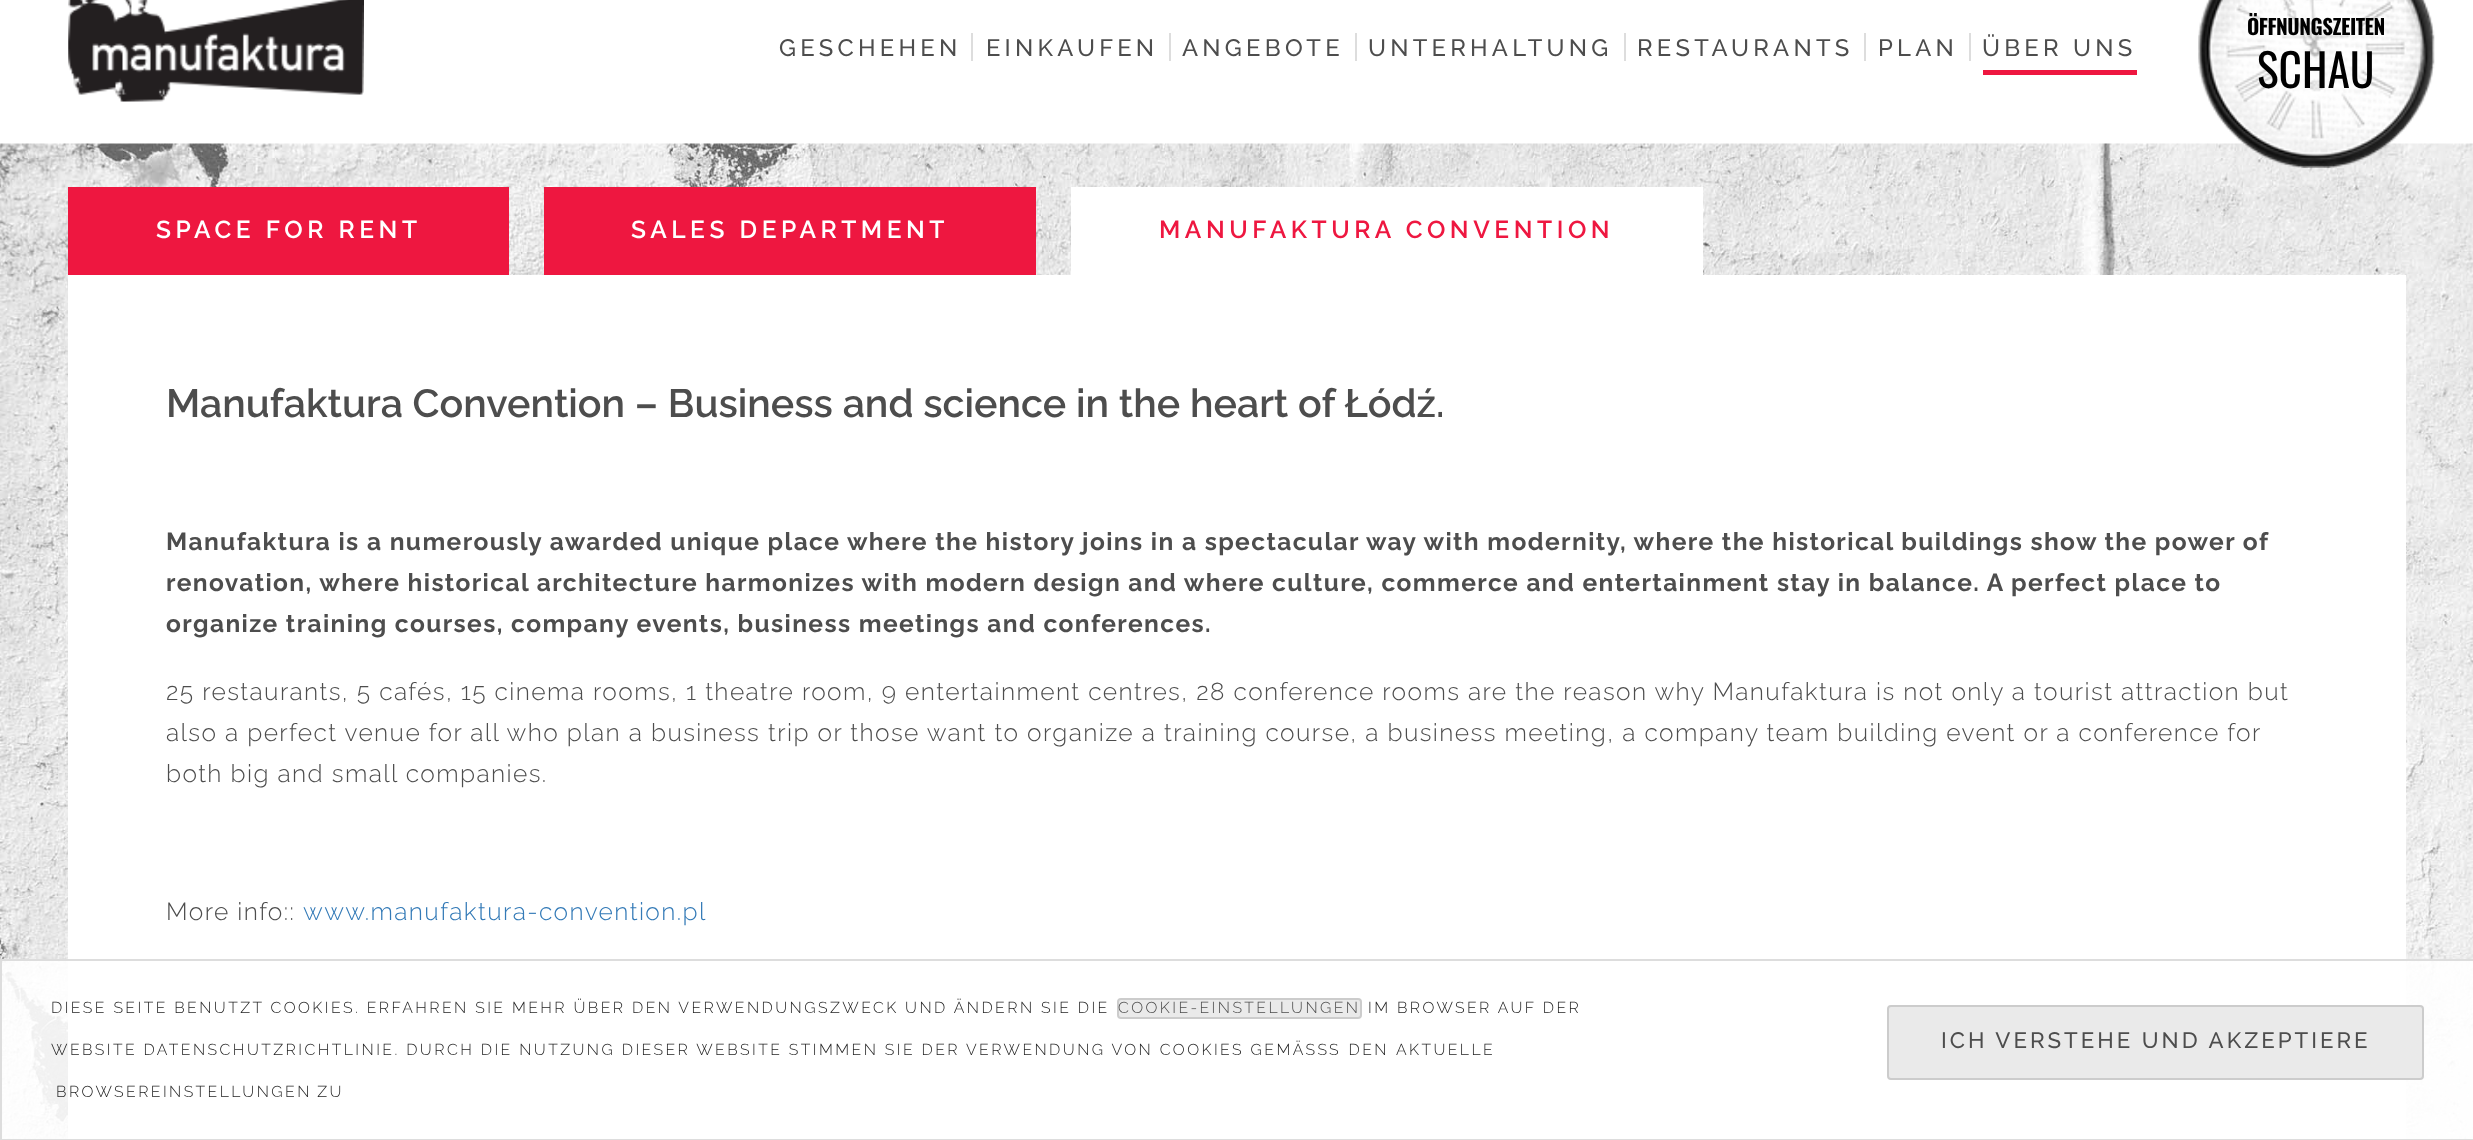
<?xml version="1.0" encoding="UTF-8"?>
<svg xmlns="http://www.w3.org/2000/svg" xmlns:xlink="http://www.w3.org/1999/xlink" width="2473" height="1140">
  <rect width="100%" height="100%" fill="#ffffff" />
  <rect x="971" y="33" width="2" height="28" fill="#dddddd" />
  <rect x="1169" y="33" width="2" height="28" fill="#dddddd" />
  <rect x="1355" y="33" width="2" height="28" fill="#dddddd" />
  <rect x="1624" y="33" width="2" height="28" fill="#dddddd" />
  <rect x="1864" y="33" width="2" height="28" fill="#dddddd" />
  <rect x="1969" y="33" width="2" height="28" fill="#dddddd" />
  <rect x="1983" y="70" width="154" height="5" fill="#ee1740" />
  <image x="68" y="0" width="296" height="102" xlink:href="image1.png" />
  <image x="0" y="143" width="2473" height="996" xlink:href="image3.png" />
  <image x="2198" y="0" width="237" height="168" xlink:href="image2.png" />
  <rect x="68" y="187" width="441" height="88" fill="#ee1740" />
  <rect x="544" y="187" width="492" height="88" fill="#ee1740" />
  <rect x="1071" y="187" width="632" height="88" fill="#ffffff" />
  <rect x="68" y="275" width="2338" height="864" fill="#ffffff" />
  <rect x="1" y="960" width="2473" height="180" fill="#ffffff" fill-opacity="0.9" stroke="#dddddd" stroke-width="2" />
  <rect x="1118" y="999" width="243" height="19" rx="3" fill="#eaeaea" stroke="#cccccc" stroke-width="2" />
  <rect x="1888" y="1006" width="535" height="73" rx="3" fill="#eaeaea" stroke="#cccccc" stroke-width="2" />
  <text x="779" y="56" style="font-family: Raleway; font-size: 23.75px; font-weight: 500; letter-spacing: 4.25px; fill: #4d4d4d">GESCHEHEN</text>
  <text x="986" y="56" style="font-family: Raleway; font-size: 23.75px; font-weight: 500; letter-spacing: 4.25px; fill: #4d4d4d">EINKAUFEN</text>
  <text x="1182" y="56" style="font-family: Raleway; font-size: 23.75px; font-weight: 500; letter-spacing: 4.25px; fill: #4d4d4d">ANGEBOTE</text>
  <text x="1368" y="56" style="font-family: Raleway; font-size: 23.75px; font-weight: 500; letter-spacing: 4.25px; fill: #4d4d4d">UNTERHALTUNG</text>
  <text x="1637" y="56" style="font-family: Raleway; font-size: 23.75px; font-weight: 500; letter-spacing: 4.25px; fill: #4d4d4d">RESTAURANTS</text>
  <text x="1878" y="56" style="font-family: Raleway; font-size: 23.75px; font-weight: 500; letter-spacing: 4.25px; fill: #4d4d4d">PLAN</text>
  <text x="1982" y="56" style="font-family: Raleway; font-size: 23.75px; font-weight: 500; letter-spacing: 4.25px; fill: #4d4d4d">ÜBER UNS</text>
  <text x="2247" y="35" style="font-family: Oswald; font-size: 21px; font-weight: bold; letter-spacing: -0.5px; fill: #000000">ÖFFNUNGSZEITEN</text>
  <text x="2257" y="88" style="font-family: Oswald; font-size: 45.5px; fill: #000000">SCHAU</text>
  <text x="156" y="238" style="font-family: Raleway; font-size: 24.5px; font-weight: 600; letter-spacing: 4.55px; fill: #ffffff">SPACE FOR RENT</text>
  <text x="631" y="238" style="font-family: Raleway; font-size: 24.5px; font-weight: 600; letter-spacing: 4.55px; fill: #ffffff">SALES DEPARTMENT</text>
  <text x="1159" y="238" style="font-family: Raleway; font-size: 24.5px; font-weight: 600; letter-spacing: 4.55px; fill: #ee1740">MANUFAKTURA CONVENTION</text>
  <text x="166" y="417" style="font-family: Raleway; font-size: 39.4px; font-weight: 600; fill: #4d4d4d">Manufaktura Convention – Business and science in the heart of Łódź.</text>
  <text x="166" y="550" style="font-family: Raleway; font-size: 24.5px; font-weight: bold; letter-spacing: 1.4px; fill: #4d4d4d">Manufaktura is a numerously awarded unique place where the history joins in a spectacular way with modernity, where the historical buildings show the power of</text>
  <text x="166" y="591" style="font-family: Raleway; font-size: 24.5px; font-weight: bold; letter-spacing: 1.4px; fill: #4d4d4d">renovation, where historical architecture harmonizes with modern design and where culture, commerce and entertainment stay in balance. A perfect place to</text>
  <text x="166" y="632" style="font-family: Raleway; font-size: 24.5px; font-weight: bold; letter-spacing: 1.4px; fill: #4d4d4d">organize training courses, company events, business meetings and conferences.</text>
  <text x="166" y="700" style="font-family: Raleway; font-size: 24.5px; font-weight: 300; letter-spacing: 1.4px; fill: #4d4d4d">25 restaurants, 5 cafés, 15 cinema rooms, 1 theatre room, 9 entertainment centres, 28 conference rooms are the reason why Manufaktura is not only a tourist attraction but</text>
  <text x="166" y="741" style="font-family: Raleway; font-size: 24.5px; font-weight: 300; letter-spacing: 1.4px; fill: #4d4d4d">also a perfect venue for all who plan a business trip or those want to organize a training course, a business meeting, a company team building event or a conference for</text>
  <text x="166" y="782" style="font-family: Raleway; font-size: 24.5px; font-weight: 300; letter-spacing: 1.4px; fill: #4d4d4d">both big and small companies.</text>
  <text x="166" y="920" style="font-family: Raleway; font-size: 24.5px; font-weight: 300; letter-spacing: 1.4px; fill: #4d4d4d">More info::</text>
  <text x="303" y="920" style="font-family: Raleway; font-size: 24.5px; font-weight: 300; letter-spacing: 1.4px; fill: #337ab7">www.manufaktura-convention.pl</text>
  <text x="51" y="1013" style="font-family: Raleway; font-size: 15.75px; font-weight: 300; letter-spacing: 2.45px; fill: #1f1f1f">DIESE SEITE BENUTZT COOKIES. ERFAHREN SIE MEHR ÜBER DEN VERWENDUNGSZWECK UND ÄNDERN SIE DIE</text>
  <text x="1118" y="1013" style="font-family: Raleway; font-size: 15.75px; font-weight: 300; letter-spacing: 2.45px; fill: #4d4d4d">COOKIE-EINSTELLUNGEN</text>
  <text x="1368" y="1013" style="font-family: Raleway; font-size: 15.75px; font-weight: 300; letter-spacing: 2.45px; fill: #1f1f1f">IM BROWSER AUF DER</text>
  <text x="51" y="1055" style="font-family: Raleway; font-size: 15.75px; font-weight: 300; letter-spacing: 2.45px; fill: #1f1f1f">WEBSITE DATENSCHUTZRICHTLINIE. DURCH DIE NUTZUNG DIESER WEBSITE STIMMEN SIE DER VERWENDUNG VON COOKIES GEMÄSS</text>
  <text x="1329" y="1055" word-spacing="1" style="font-family: Raleway; font-size: 15.75px; font-weight: 300; letter-spacing: 2.45px; fill: #1f1f1f">S DEN AKTUELLE</text>
  <text x="56" y="1097" word-spacing="-1" style="font-family: Raleway; font-size: 15.75px; font-weight: 300; letter-spacing: 2.45px; fill: #1f1f1f">BROWSEREINSTELLUNGEN ZU</text>
  <text x="1941" y="1048" style="font-family: Raleway; font-size: 22.25px; font-weight: 500; letter-spacing: 3px; fill: #4d4d4d">ICH VERSTEHE UND AKZEPTIERE</text>
</svg>
